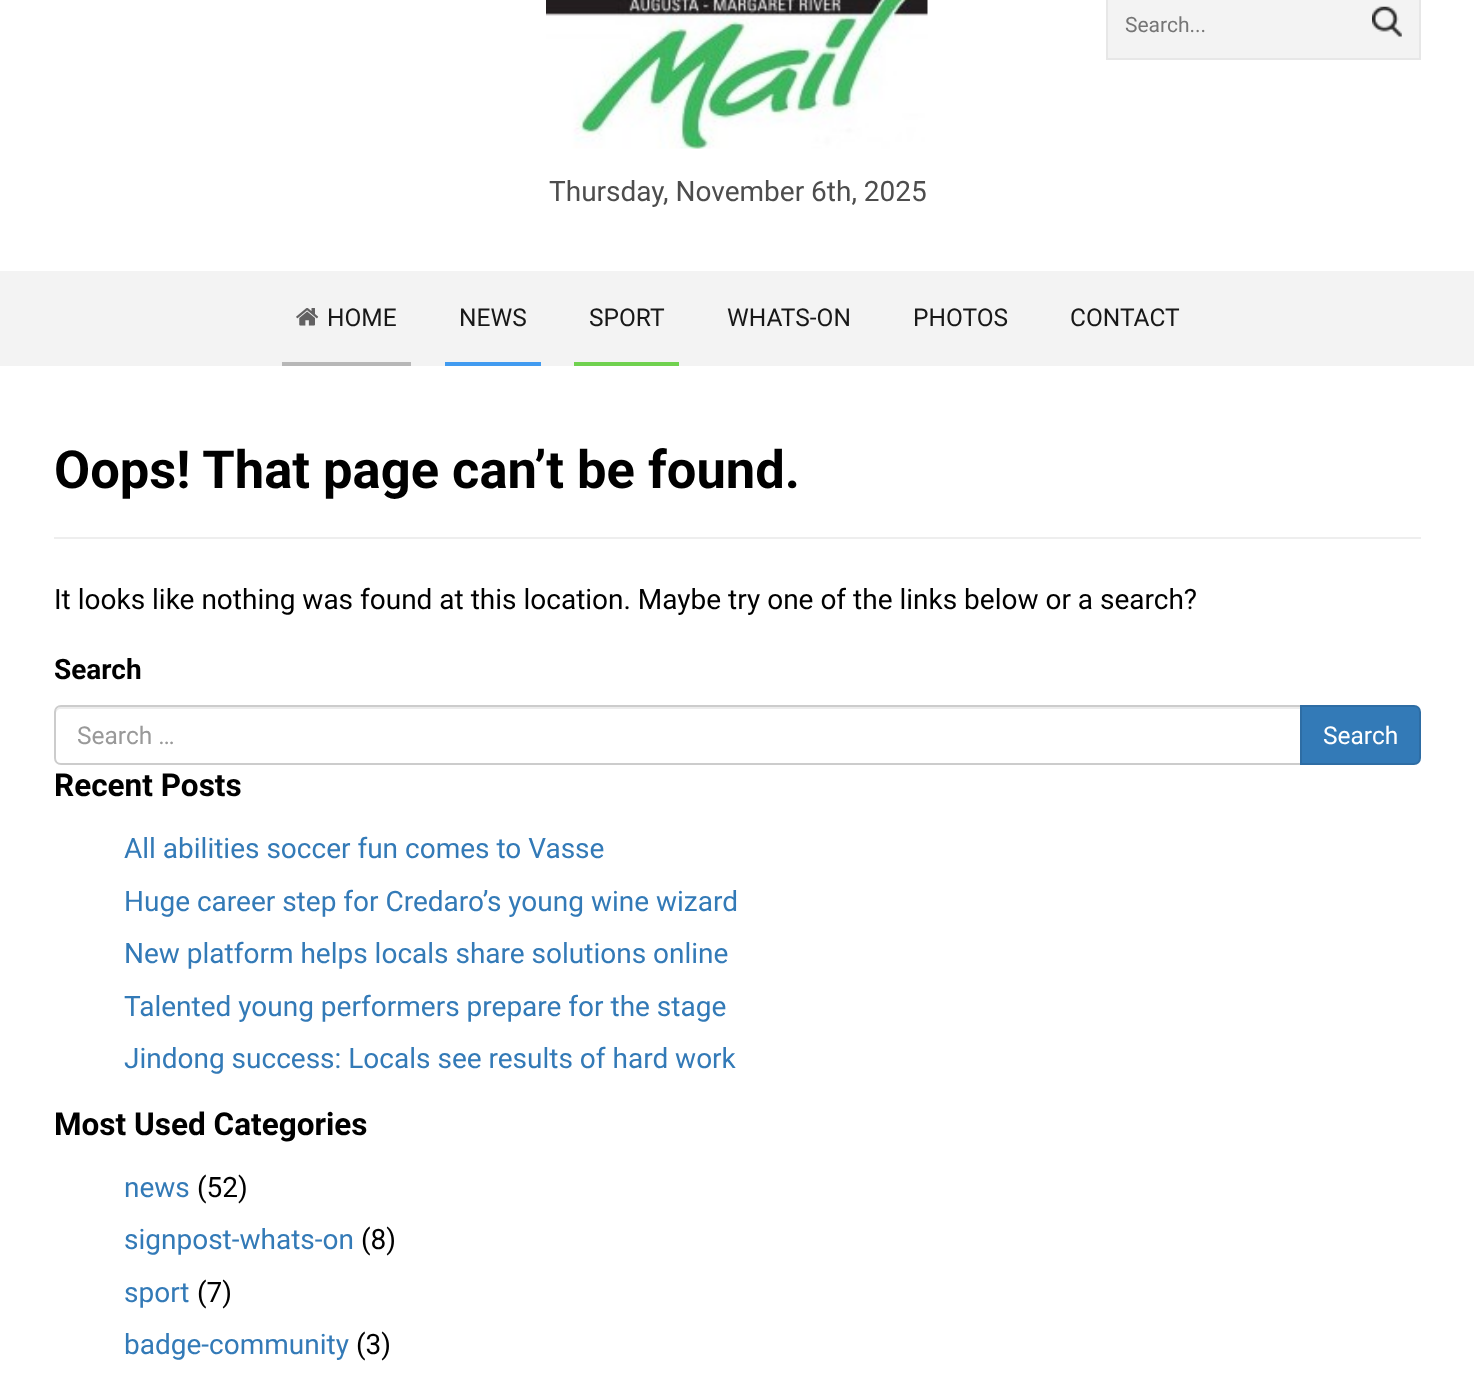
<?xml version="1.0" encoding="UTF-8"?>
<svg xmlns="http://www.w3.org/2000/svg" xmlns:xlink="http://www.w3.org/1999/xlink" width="1474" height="1394">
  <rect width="100%" height="100%" fill="#ffffff" />
  <rect x="1107" y="-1" width="313" height="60" fill="#f3f3f3" stroke="#e7e7e7" stroke-width="2" />
  <image x="1372" y="6" width="30" height="31" xlink:href="image1.png" />
  <image x="546" y="0" width="382" height="149" xlink:href="image2.png" />
  <rect y="271" width="1474" height="95" fill="#f3f3f3" />
  <rect x="282" y="362" width="129" height="4" fill="#b7b7b7" />
  <image x="296" y="308" width="23" height="18" xlink:href="image3.png" />
  <rect x="445" y="362" width="96" height="4" fill="#419bf0" />
  <rect x="574" y="362" width="105" height="4" fill="#70d14f" />
  <rect x="54" y="537" width="1367" height="2" fill="#eeeeee" />
  <path d="M 61 709 h 1239 v -2 h -1239 c -3 0 -5 2 -5 5 v 2 c 0 -3 2 -5 5 -5 z" fill="#ececec" />
  <path d="M 61 706 h 1240 v 58 h -1240 c -3.5 0 -6 -2.5 -6 -6 v -46 c 0 -3.5 2.5 -6 6 -6 z" fill="none" stroke="#cccccc" stroke-width="2" />
  <path d="M 1301 706 h 113 c 3.5 0 6 2.5 6 6 v 46 c 0 3.5 -2.5 6 -6 6 h -113 z" fill="#337ab7" stroke="#2e6da4" stroke-width="2" />
  <text x="1125" y="32" style="font-family: Roboto; font-size: 21px; fill: #757575">Search...</text>
  <text x="549" y="201" style="font-family: Roboto; font-size: 28px; fill: #4d4d4d">Thursday, November 6th, 2025</text>
  <text x="327" y="326" style="font-family: Roboto; font-size: 24.5px; fill: #181818">HOME</text>
  <text x="459" y="326" style="font-family: Roboto; font-size: 24.5px; fill: #181818">NEWS</text>
  <text x="589" y="326" style="font-family: Roboto; font-size: 24.5px; fill: #181818">SPORT</text>
  <text x="727" y="326" style="font-family: Roboto; font-size: 24.5px; fill: #181818">WHATS-ON</text>
  <text x="913" y="326" style="font-family: Roboto; font-size: 24.5px; fill: #181818">PHOTOS</text>
  <text x="1070" y="326" style="font-family: Roboto; font-size: 24.5px; fill: #181818">CONTACT</text>
  <text x="54" y="488" style="font-family: Roboto; font-size: 52.5px; font-weight: bold; fill: #000000">Oops! That page can’t be found.</text>
  <text x="54" y="609" style="font-family: Roboto; font-size: 28px; fill: #000000">It looks like nothing was found at this location. Maybe try one of the links below or a search?</text>
  <text x="54" y="679" style="font-family: Roboto; font-size: 28px; font-weight: bold; fill: #000000">Search</text>
  <text x="77" y="744" style="font-family: Roboto; font-size: 24.5px; fill: #999999">Search …</text>
  <text x="1323" y="744" style="font-family: Roboto; font-size: 24.5px; fill: #ffffff">Search</text>
  <text x="54" y="796" style="font-family: Roboto; font-size: 31.5px; font-weight: bold; fill: #000000">Recent Posts</text>
  <text x="124" y="858" style="font-family: Roboto; font-size: 28px; fill: #337ab7">All abilities soccer fun comes to Vasse</text>
  <text x="124" y="911" style="font-family: Roboto; font-size: 28px; fill: #337ab7">Huge career step for Credaro’s young wine wizard</text>
  <text x="124" y="963" style="font-family: Roboto; font-size: 28px; fill: #337ab7">New platform helps locals share solutions online</text>
  <text x="124" y="1016" style="font-family: Roboto; font-size: 28px; fill: #337ab7">Talented young performers prepare for the stage</text>
  <text x="124" y="1068" style="font-family: Roboto; font-size: 28px; fill: #337ab7">Jindong success: Locals see results of hard work</text>
  <text x="54" y="1135" style="font-family: Roboto; font-size: 31.5px; font-weight: bold; fill: #000000">Most Used Categories</text>
  <text x="124" y="1197" style="font-family: Roboto; font-size: 28px; fill: #337ab7">news</text>
  <text x="197" y="1197" style="font-family: Roboto; font-size: 28px; fill: #000000">(52)</text>
  <text x="124" y="1249" style="font-family: Roboto; font-size: 28px; fill: #337ab7">signpost-whats-on</text>
  <text x="361" y="1249" style="font-family: Roboto; font-size: 28px; fill: #000000">(8)</text>
  <text x="124" y="1302" style="font-family: Roboto; font-size: 28px; fill: #337ab7">sport</text>
  <text x="197" y="1302" style="font-family: Roboto; font-size: 28px; fill: #000000">(7)</text>
  <text x="124" y="1354" style="font-family: Roboto; font-size: 28px; fill: #337ab7">badge-community</text>
  <text x="356" y="1354" style="font-family: Roboto; font-size: 28px; fill: #000000">(3)</text>
</svg>
